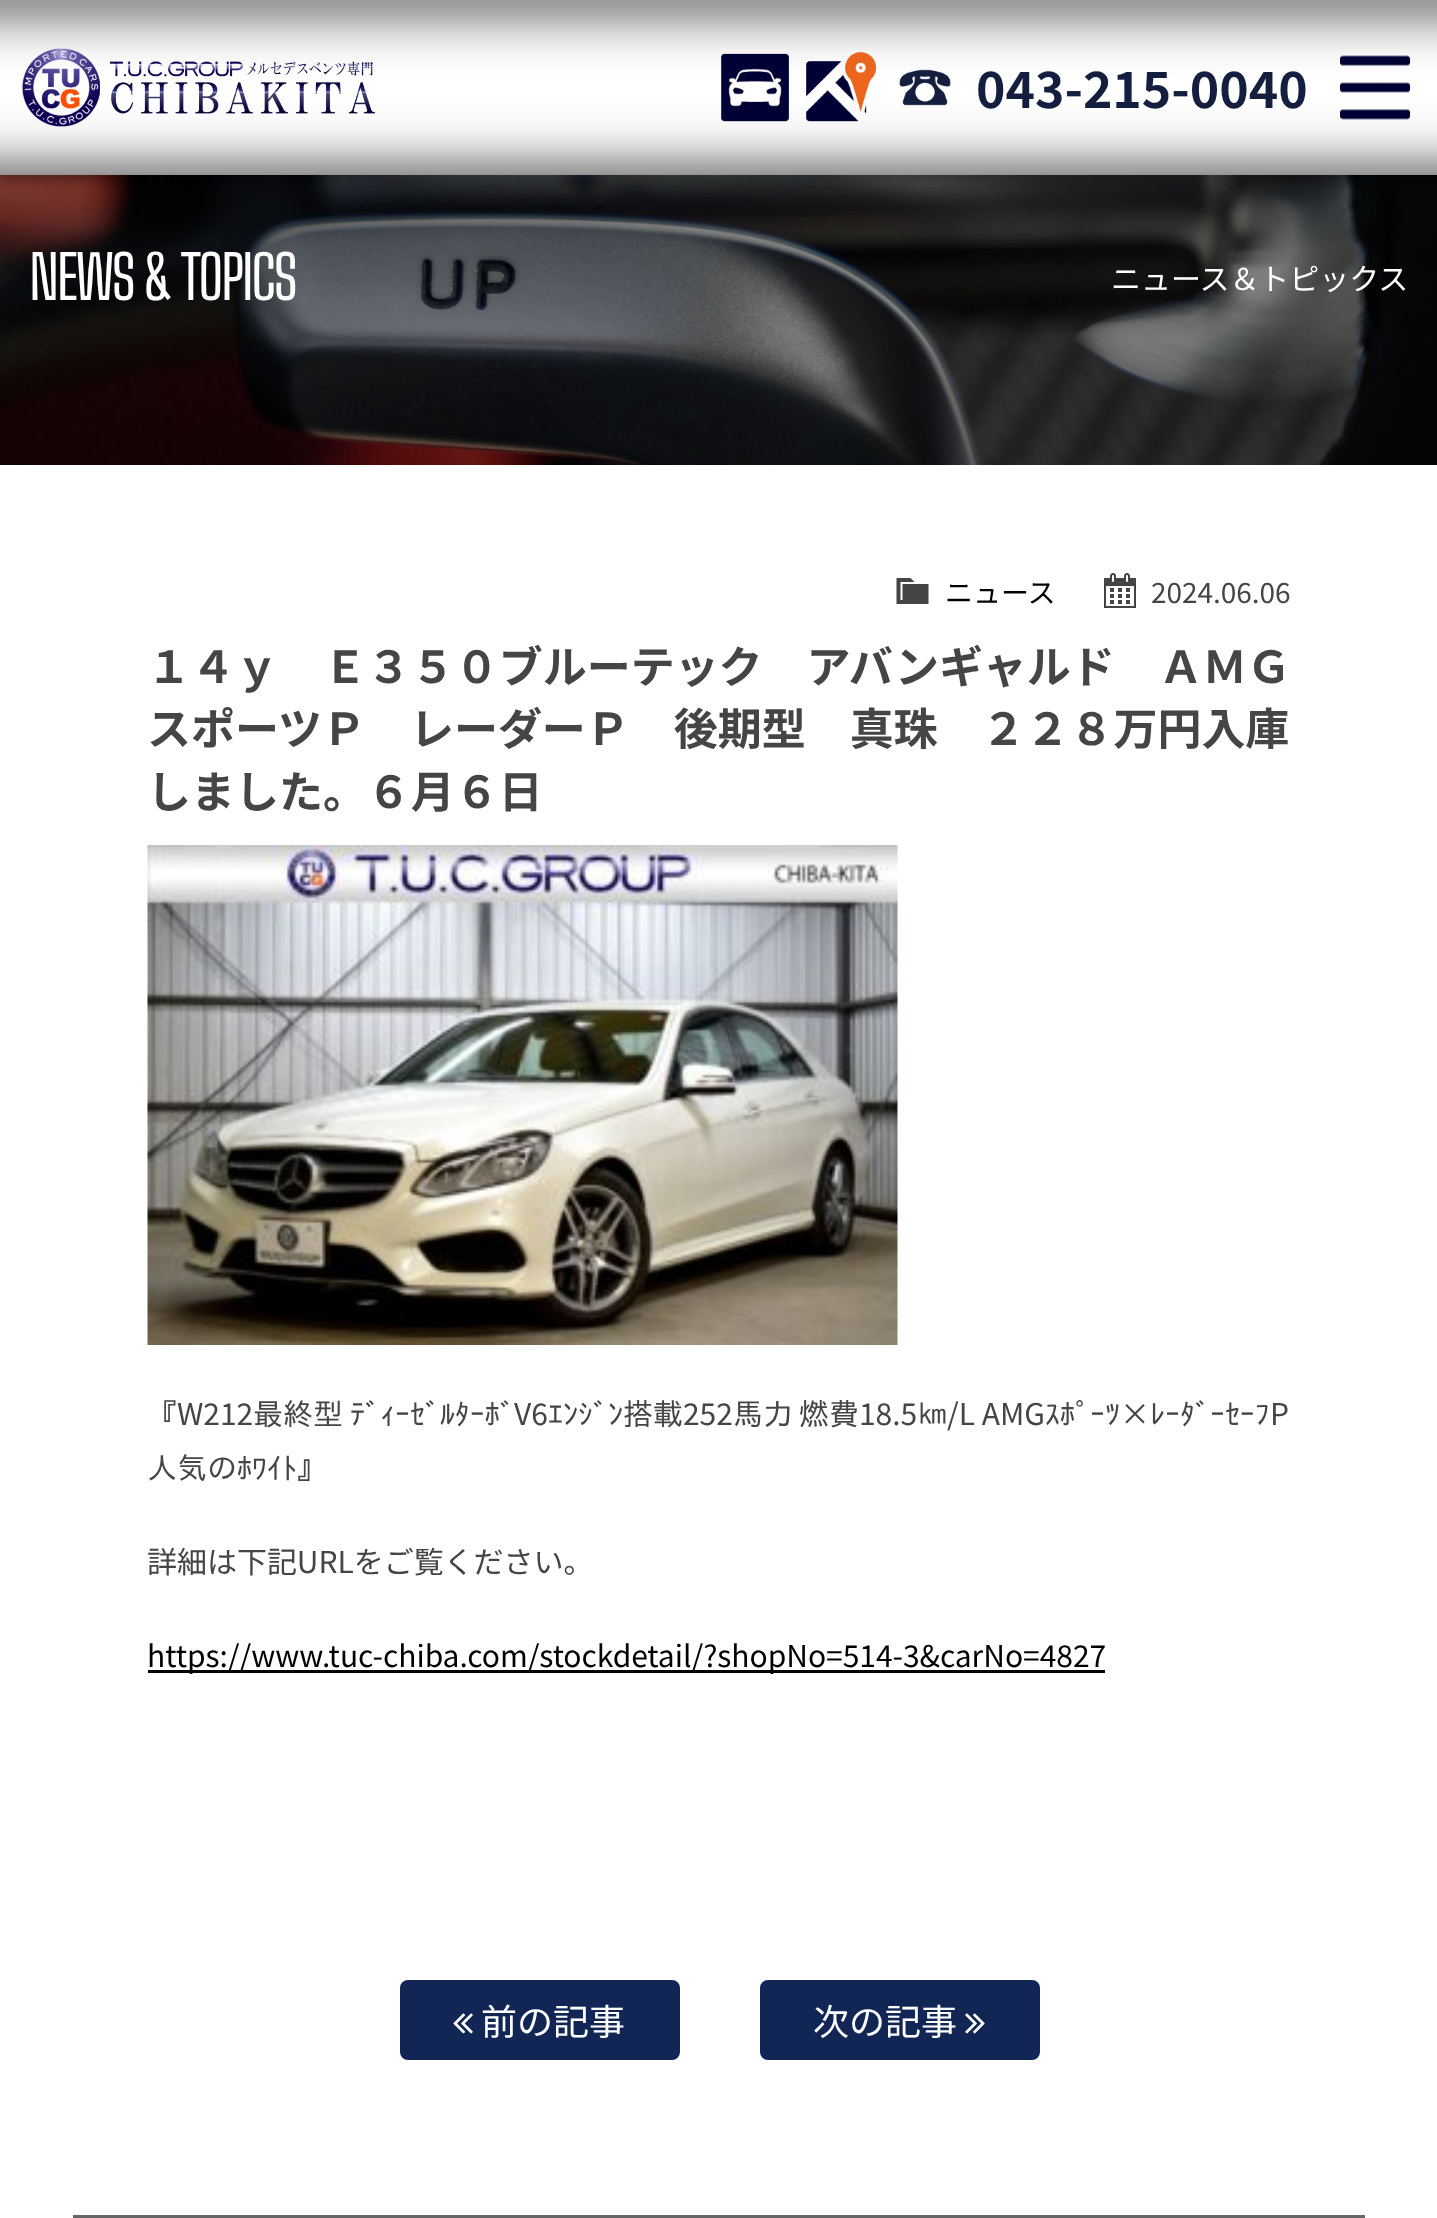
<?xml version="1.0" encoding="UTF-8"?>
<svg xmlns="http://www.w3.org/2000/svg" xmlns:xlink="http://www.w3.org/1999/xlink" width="1437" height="2218">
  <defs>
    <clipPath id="clip1"><rect x="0" y="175" width="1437" height="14" /></clipPath>
  </defs>
  <rect width="100%" height="100%" fill="#ffffff" />
  <image x="0" y="173" width="1437" height="292" xlink:href="image7.png" />
  <g clip-path="url(#clip1)">
    <rect y="5" width="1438" height="175" fill="#000000" fill-opacity="0.3" filter="blur(6px)" />
  </g>
  <image x="0" y="0" width="1437" height="175" xlink:href="image1.png" />
  <image x="22" y="48" width="353" height="79" xlink:href="image2.png" />
  <image x="720" y="53" width="69" height="69" xlink:href="image3.png" />
  <image x="806" y="52" width="71" height="70" xlink:href="image4.png" />
  <image x="899" y="69" width="52" height="37" xlink:href="image5.png" />
  <image x="1340" y="55" width="71" height="65" xlink:href="image6.png" />
  <path d="M 902.5 584 h 26 v 20 h -32 v -26 h 14 l 4 4 h -14 v 18 h 2 z" fill="#454545" />
  <image x="1104" y="573" width="32" height="35" xlink:href="image8.png" />
  <image x="147" y="845" width="751" height="500" xlink:href="image9.png" />
  <rect x="148" y="1670" width="957" height="3" fill="#000000" />
  <rect x="400" y="1980" width="280" height="80" rx="8" fill="#122655" />
  <image x="453" y="2013" width="20" height="21" xlink:href="image10.png" />
  <rect x="760" y="1980" width="280" height="80" rx="8" fill="#122655" />
  <image x="965" y="2013" width="20" height="21" xlink:href="image11.png" />
  <rect x="73" y="2215" width="1292" height="3" fill="#666666" />
  <text x="976" y="108" style="font-family: Noto Sans JP; font-size: 50px; font-weight: bold; letter-spacing: -0.03px; fill: #141e3e">043-215-0040</text>
  <text x="29" y="300" style="font-family: Big Shoulders Text; font-size: 60px; letter-spacing: -2.5px; fill: #ffffff">NEWS &amp; TOPICS</text>
  <text x="1111" y="290" style="font-family: Noto Sans JP; font-size: 30px; letter-spacing: -0.03px; fill: #ffffff">ニュース＆トピックス</text>
  <text x="945" y="603" style="font-family: Noto Sans JP; font-size: 28px; letter-spacing: -0.03px; fill: #000000">ニュース</text>
  <text x="1151" y="603" style="font-family: Noto Sans JP; font-size: 28px; letter-spacing: -0.03px; fill: #454545">2024.06.06</text>
  <text x="147" y="683" style="font-family: Noto Sans JP; font-size: 44px; font-weight: bold; letter-spacing: -0.03px; fill: #454545">１４ｙ　Ｅ３５０ブルーテック　アバンギャルド　ＡＭＧ</text>
  <text x="147" y="745" style="font-family: Noto Sans JP; font-size: 44px; font-weight: bold; letter-spacing: -0.03px; fill: #454545">スポーツＰ　レーダーＰ　後期型　真珠　２２８万円入庫</text>
  <text x="147" y="808" style="font-family: Noto Sans JP; font-size: 44px; font-weight: bold; letter-spacing: -0.03px; fill: #454545">しました。６月６日</text>
  <text x="147" y="1425" style="font-family: IPAGothic; font-size: 30px; letter-spacing: -0.03px; fill: #454545">『</text>
  <text x="177" y="1425" style="font-family: Noto Sans JP; font-size: 30px; letter-spacing: -0.03px; fill: #454545">W212</text>
  <text x="253" y="1425" style="font-family: IPAGothic; font-size: 30px; letter-spacing: -0.03px; fill: #454545">最終型</text>
  <text x="350" y="1425" style="font-family: IPAGothic; font-size: 30px; letter-spacing: -0.03px; fill: #454545">ﾃﾞｨｰｾﾞﾙﾀｰﾎﾞ</text>
  <text x="514" y="1425" style="font-family: Noto Sans JP; font-size: 30px; letter-spacing: -0.03px; fill: #454545">V6</text>
  <text x="548" y="1425" style="font-family: IPAGothic; font-size: 30px; letter-spacing: -0.03px; fill: #454545">ｴﾝｼﾞﾝ搭載</text>
  <text x="683" y="1425" style="font-family: Noto Sans JP; font-size: 30px; letter-spacing: -0.03px; fill: #454545">252</text>
  <text x="733" y="1425" style="font-family: IPAGothic; font-size: 30px; letter-spacing: -0.03px; fill: #454545">馬力</text>
  <text x="799" y="1425" style="font-family: IPAGothic; font-size: 30px; letter-spacing: -0.03px; fill: #454545">燃費</text>
  <text x="859" y="1425" style="font-family: Noto Sans JP; font-size: 30px; letter-spacing: -0.03px; fill: #454545">18.5</text>
  <text x="918" y="1425" style="font-family: IPAGothic; font-size: 30px; letter-spacing: -0.03px; fill: #454545">㎞</text>
  <text x="947" y="1425" style="font-family: Noto Sans JP; font-size: 30px; letter-spacing: -0.03px; fill: #454545">/L AMG</text>
  <text x="1045" y="1425" style="font-family: IPAGothic; font-size: 30px; letter-spacing: -0.03px; fill: #454545">ｽﾎﾟｰﾂ</text>
  <text x="1120" y="1425" style="font-family: Noto Sans JP; font-size: 30px; letter-spacing: -0.03px; fill: #454545">×</text>
  <text x="1150" y="1425" style="font-family: IPAGothic; font-size: 30px; letter-spacing: -0.03px; fill: #454545">ﾚｰﾀﾞｰｾｰﾌ</text>
  <text x="1270" y="1425" style="font-family: Noto Sans JP; font-size: 30px; letter-spacing: -0.03px; fill: #454545">P</text>
  <text x="147" y="1479" style="font-family: IPAGothic; font-size: 30px; letter-spacing: -0.03px; fill: #454545">人気のﾎﾜｲﾄ』</text>
  <text x="147" y="1573" style="font-family: Noto Sans JP; font-size: 30px; letter-spacing: -0.03px; fill: #454545">詳細は下記URLをご覧ください。</text>
  <text x="147" y="1667" style="font-family: Noto Sans JP; font-size: 30px; letter-spacing: -0.03px; fill: #000000">https://www.tuc-chiba.com/stockdetail/?shopNo=514-3&amp;carNo=4827</text>
  <text x="481" y="2035" style="font-family: Noto Sans JP; font-size: 36px; letter-spacing: -0.03px; fill: #ffffff">前の記事</text>
  <text x="813" y="2035" style="font-family: Noto Sans JP; font-size: 36px; letter-spacing: -0.03px; fill: #ffffff">次の記事</text>
</svg>
